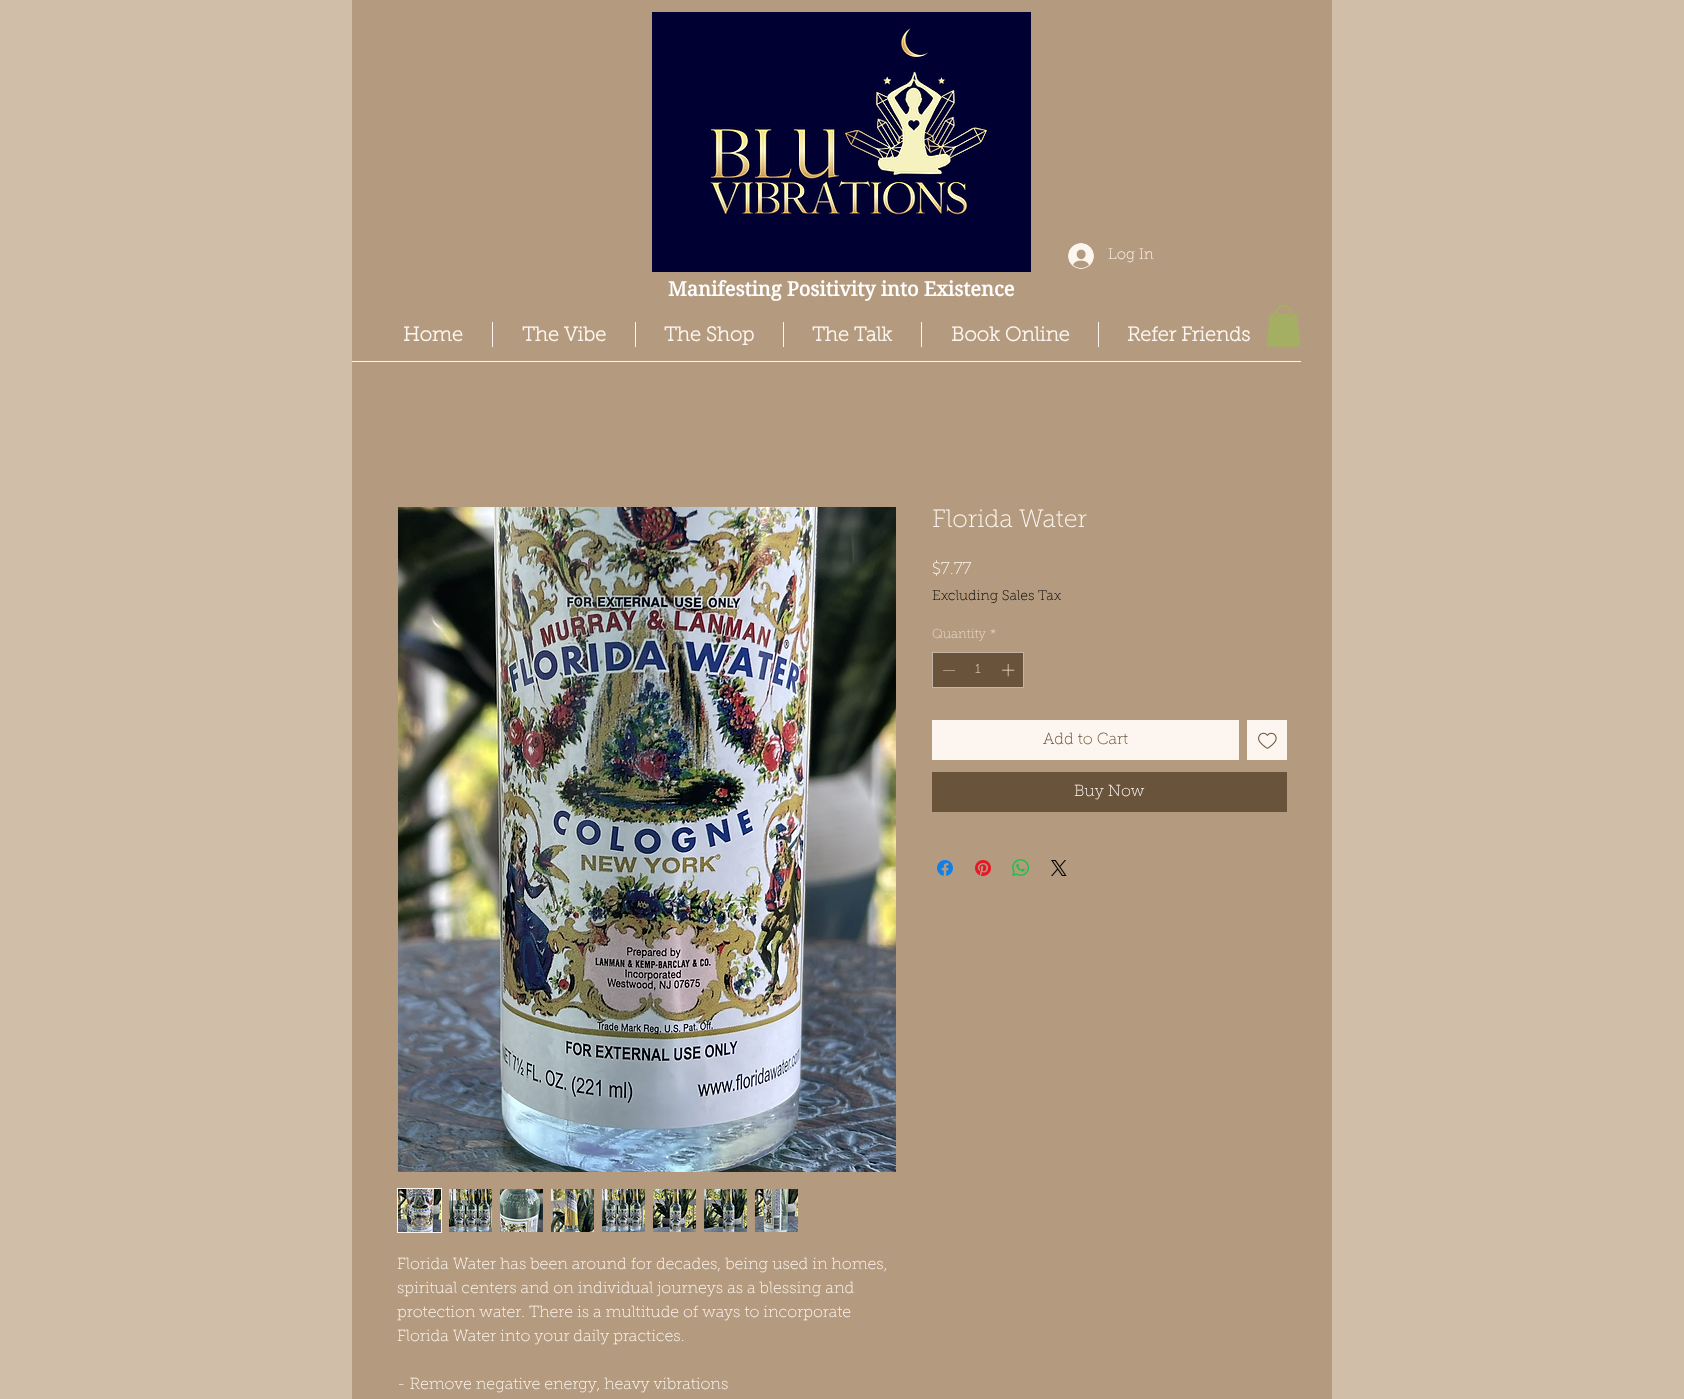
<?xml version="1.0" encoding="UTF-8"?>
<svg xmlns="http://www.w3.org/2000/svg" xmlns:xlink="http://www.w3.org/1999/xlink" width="1684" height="1399">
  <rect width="100%" height="100%" fill="#d1bea9" />
  <rect x="352" width="980" height="1399" fill="#b49b7f" />
  <image x="652" y="12" width="379" height="260" xlink:href="image1.png" />
  <image x="1068" y="243" width="26" height="26" xlink:href="image2.png" />
  <rect x="492" y="322" width="1" height="25" fill="#fdf6f0" />
  <rect x="635" y="322" width="1" height="25" fill="#fdf6f0" />
  <rect x="783" y="322" width="1" height="25" fill="#fdf6f0" />
  <rect x="921" y="322" width="1" height="25" fill="#fdf6f0" />
  <rect x="1098" y="322" width="1" height="25" fill="#fdf6f0" />
  <image x="1267" y="305" width="33" height="42" xlink:href="image3.png" />
  <rect x="352" y="361" width="949" height="1" fill="#fdf6f0" />
  <rect x="932.5" y="652.5" width="91" height="35" fill="#69533a" stroke="#c2b5a7" />
  <path d="M 955 670 v 0.5 h -12 v -0.5 z" fill="#e9dbcb" fill-rule="evenodd" />
  <image x="1002" y="664" width="13" height="13" xlink:href="image4.png" />
  <rect x="932" y="720" width="307" height="40" fill="#fdf6f0" />
  <rect x="1247" y="720" width="40" height="40" fill="#fdf6f0" />
  <image x="1258" y="732" width="19" height="17" xlink:href="image5.png" />
  <rect x="932" y="772" width="355" height="40" fill="#69533a" />
  <image x="937" y="860" width="16" height="16" xlink:href="image6.png" />
  <image x="975" y="860" width="16" height="16" xlink:href="image7.png" />
  <image x="1012" y="859" width="17" height="17" xlink:href="image8.png" />
  <image x="1051" y="860" width="16" height="16" xlink:href="image9.png" />
  <image x="398" y="507" width="498" height="665" xlink:href="image10.png" />
  <rect x="397.5" y="1188.5" width="44" height="44" fill="none" stroke="#fdf6f0" />
  <image x="398" y="1189" width="43" height="43" xlink:href="image11.png" />
  <image x="449" y="1189" width="43" height="43" xlink:href="image12.png" />
  <image x="500" y="1189" width="43" height="43" xlink:href="image13.png" />
  <image x="551" y="1189" width="43" height="43" xlink:href="image14.png" />
  <image x="602" y="1189" width="43" height="43" xlink:href="image15.png" />
  <image x="653" y="1189" width="43" height="43" xlink:href="image16.png" />
  <image x="704" y="1189" width="43" height="43" xlink:href="image17.png" />
  <image x="755" y="1189" width="43" height="43" xlink:href="image18.png" />
  <text x="1108" y="259" style="font-family: 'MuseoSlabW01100'; font-size: 15px; font-weight: 100; fill: #fdf6f0">Log In</text>
  <text x="668" y="296" style="font-family: 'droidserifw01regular'; font-size: 20px; font-weight: bold; fill: #ffffff">Manifesting Positivity into Existence</text>
  <text x="403" y="341" style="font-family: 'MuseoSlabW01100'; font-size: 20px; font-weight: bold; fill: #fdf6f0">Home</text>
  <text x="522" y="341" style="font-family: 'MuseoSlabW01100'; font-size: 20px; font-weight: bold; fill: #fdf6f0">The Vibe</text>
  <text x="664" y="341" style="font-family: 'MuseoSlabW01100'; font-size: 20px; font-weight: bold; fill: #fdf6f0">The Shop</text>
  <text x="812" y="341" style="font-family: 'MuseoSlabW01100'; font-size: 20px; font-weight: bold; fill: #fdf6f0">The Talk</text>
  <text x="951" y="341" style="font-family: 'MuseoSlabW01100'; font-size: 20px; font-weight: bold; fill: #fdf6f0">Book Online</text>
  <text x="1127" y="341" style="font-family: 'MuseoSlabW01100'; font-size: 20px; font-weight: bold; fill: #fdf6f0">Refer Friends</text>
  <text x="932" y="527" style="font-family: 'MuseoSlabW01100'; font-size: 25px; font-weight: 100; fill: #fdf6f0">Florida Water</text>
  <text x="932" y="574" style="font-family: 'MuseoSlabW01100'; font-size: 17px; font-weight: 100; fill: #fdf6f0">$7.77</text>
  <text x="932" y="600" style="font-family: 'MuseoSlabW01100'; font-size: 14px; font-weight: 100; fill: #000000">Excluding Sales Tax</text>
  <text x="932" y="638" style="font-family: 'MuseoSlabW01100'; font-size: 13px; font-weight: 100; fill: #e9dbcb">Quantity</text>
  <text x="990" y="638" style="font-family: 'MuseoSlabW01100'; font-size: 13px; font-weight: 100; fill: #e9dbcb">*</text>
  <text x="975" y="673" style="font-family: 'MuseoSlabW01100'; font-size: 13px; font-weight: 100; fill: #e9dbcb">1</text>
  <text x="1043" y="744" style="font-family: 'MuseoSlabW01100'; font-size: 16px; font-weight: 100; fill: #69533a">Add to Cart</text>
  <text x="1074" y="796" style="font-family: 'MuseoSlabW01100'; font-size: 16px; font-weight: 100; fill: #fdf6f0">Buy Now</text>
  <text x="397" y="1269" style="font-family: 'MuseoSlabW01100'; font-size: 16px; font-weight: 100; fill: #fdf6f0">Florida Water has been around for decades, being used in homes,</text>
  <text x="397" y="1293" style="font-family: 'MuseoSlabW01100'; font-size: 16px; font-weight: 100; fill: #fdf6f0">spiritual centers and on individual journeys as a blessing and</text>
  <text x="397" y="1317" style="font-family: 'MuseoSlabW01100'; font-size: 16px; font-weight: 100; fill: #fdf6f0">protection water. There is a multitude of ways to incorporate</text>
  <text x="397" y="1341" style="font-family: 'MuseoSlabW01100'; font-size: 16px; font-weight: 100; fill: #fdf6f0">Florida Water into your daily practices.</text>
  <text x="397" y="1389" style="font-family: 'MuseoSlabW01100'; font-size: 16px; font-weight: 100; fill: #fdf6f0">- Remove negative energy, heavy vibrations</text>
</svg>
